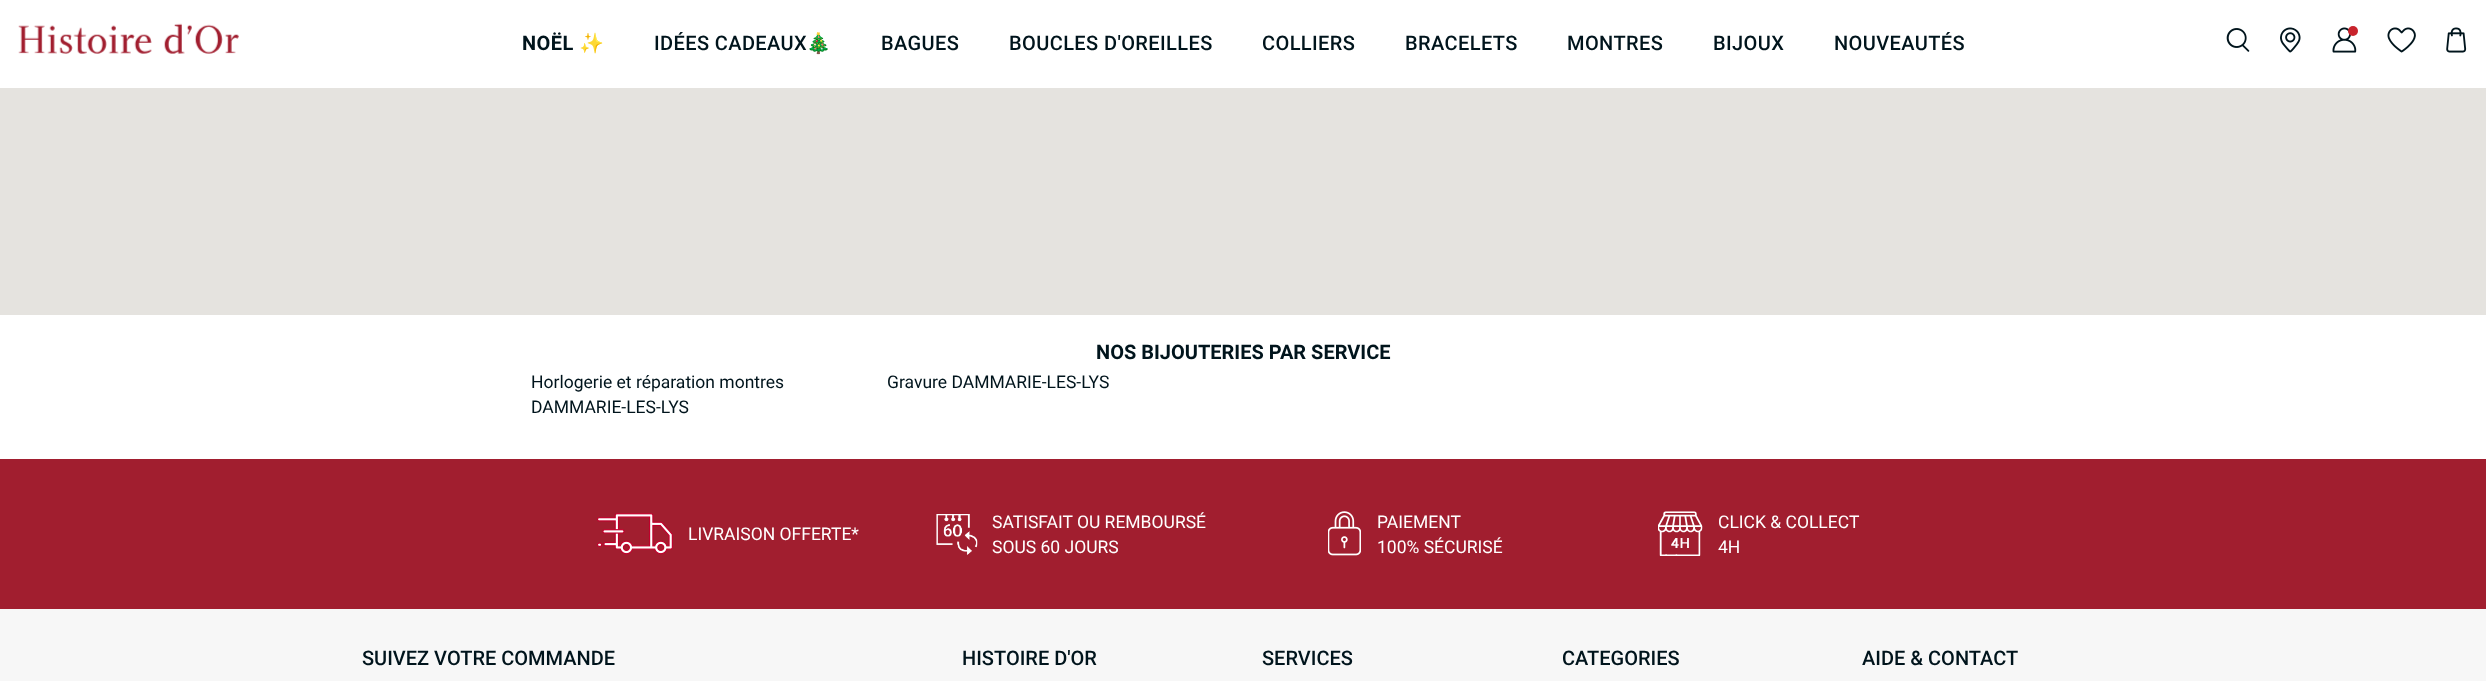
<?xml version="1.0" encoding="UTF-8"?>
<svg xmlns="http://www.w3.org/2000/svg" xmlns:xlink="http://www.w3.org/1999/xlink" width="2486" height="681">
  <rect width="100%" height="100%" fill="#ffffff" />
  <image x="18" y="23" width="221" height="31" xlink:href="image1.png" />
  <image x="2226" y="28" width="24" height="24" xlink:href="image2.png" />
  <image x="2280" y="27" width="21" height="26" xlink:href="image3.png" />
  <image x="2332" y="27" width="25" height="26" xlink:href="image4.png" />
  <circle cx="2353" cy="31" r="5" fill="#c8232c" />
  <image x="2387" y="27" width="29" height="26" xlink:href="image5.png" />
  <image x="2446" y="27" width="21" height="26" xlink:href="image6.png" />
  <rect y="88" width="2486" height="227" fill="#e5e3df" />
  <rect y="459" width="2486" height="150" fill="#a11e2f" />
  <image x="597" y="513" width="76" height="42" xlink:href="image7.png" />
  <image x="936" y="514" width="42" height="41" xlink:href="image8.png" />
  <image x="1328" y="511" width="33" height="45" xlink:href="image9.png" />
  <image x="1658" y="511" width="45" height="45" xlink:href="image10.png" />
  <rect y="609" width="2486" height="72" fill="#f7f7f7" />
  <text x="522" y="50" style="font-family: Roboto; font-size: 20px; font-weight: bold; letter-spacing: 0.4px; fill: #00141c">NOËL</text>
  <text x="579" y="50" style="font-family: Noto Color Emoji; font-size: 20px; font-weight: bold; letter-spacing: 0.4px; fill: #00141c">✨</text>
  <text x="654" y="50" style="font-family: Roboto; font-size: 20px; font-weight: 500; letter-spacing: 0.4px; fill: #00141c">IDÉES CADEAUX</text>
  <text x="806" y="50" style="font-family: Noto Color Emoji; font-size: 20px; letter-spacing: 0.4px; fill: #00141c">🎄</text>
  <text x="881" y="50" style="font-family: Roboto; font-size: 20px; font-weight: 500; letter-spacing: 0.4px; fill: #00141c">BAGUES</text>
  <text x="1009" y="50" style="font-family: Roboto; font-size: 20px; font-weight: 500; letter-spacing: 0.4px; fill: #00141c">BOUCLES D'OREILLES</text>
  <text x="1262" y="50" style="font-family: Roboto; font-size: 20px; font-weight: 500; letter-spacing: 0.4px; fill: #00141c">COLLIERS</text>
  <text x="1405" y="50" style="font-family: Roboto; font-size: 20px; font-weight: 500; letter-spacing: 0.4px; fill: #00141c">BRACELETS</text>
  <text x="1567" y="50" style="font-family: Roboto; font-size: 20px; font-weight: 500; letter-spacing: 0.4px; fill: #00141c">MONTRES</text>
  <text x="1713" y="50" style="font-family: Roboto; font-size: 20px; font-weight: 500; letter-spacing: 0.4px; fill: #00141c">BIJOUX</text>
  <text x="1834" y="50" style="font-family: Roboto; font-size: 20px; font-weight: 500; letter-spacing: 0.4px; fill: #00141c">NOUVEAUTÉS</text>
  <text x="1096" y="359" style="font-family: Roboto; font-size: 20px; font-weight: bold; fill: #00141c">NOS BIJOUTERIES PAR SERVICE</text>
  <text x="531" y="388" style="font-family: Roboto; font-size: 17.5px; fill: #00141c">Horlogerie et réparation montres</text>
  <text x="531" y="413" style="font-family: Roboto; font-size: 17.5px; fill: #00141c">DAMMARIE-LES-LYS</text>
  <text x="887" y="388" style="font-family: Roboto; font-size: 17.5px; fill: #00141c">Gravure DAMMARIE-LES-LYS</text>
  <text x="688" y="540" style="font-family: Roboto; font-size: 17.5px; fill: #ffffff">LIVRAISON OFFERTE*</text>
  <text x="992" y="528" style="font-family: Roboto; font-size: 17.5px; fill: #ffffff">SATISFAIT OU REMBOURSÉ</text>
  <text x="992" y="553" style="font-family: Roboto; font-size: 17.5px; fill: #ffffff">SOUS 60 JOURS</text>
  <text x="1377" y="528" style="font-family: Roboto; font-size: 17.5px; fill: #ffffff">PAIEMENT</text>
  <text x="1377" y="553" style="font-family: Roboto; font-size: 17.5px; fill: #ffffff">100% SÉCURISÉ</text>
  <text x="1718" y="528" style="font-family: Roboto; font-size: 17.5px; fill: #ffffff">CLICK &amp; COLLECT</text>
  <text x="1718" y="553" style="font-family: Roboto; font-size: 17.5px; fill: #ffffff">4H</text>
  <text x="362" y="665" style="font-family: Roboto; font-size: 20px; font-weight: 500; fill: #00141c">SUIVEZ VOTRE COMMANDE</text>
  <text x="962" y="665" style="font-family: Roboto; font-size: 20px; font-weight: 500; fill: #00141c">HISTOIRE D'OR</text>
  <text x="1262" y="665" style="font-family: Roboto; font-size: 20px; font-weight: 500; fill: #00141c">SERVICES</text>
  <text x="1562" y="665" style="font-family: Roboto; font-size: 20px; font-weight: 500; fill: #00141c">CATEGORIES</text>
  <text x="1862" y="665" style="font-family: Roboto; font-size: 20px; font-weight: 500; fill: #00141c">AIDE &amp; CONTACT</text>
</svg>
